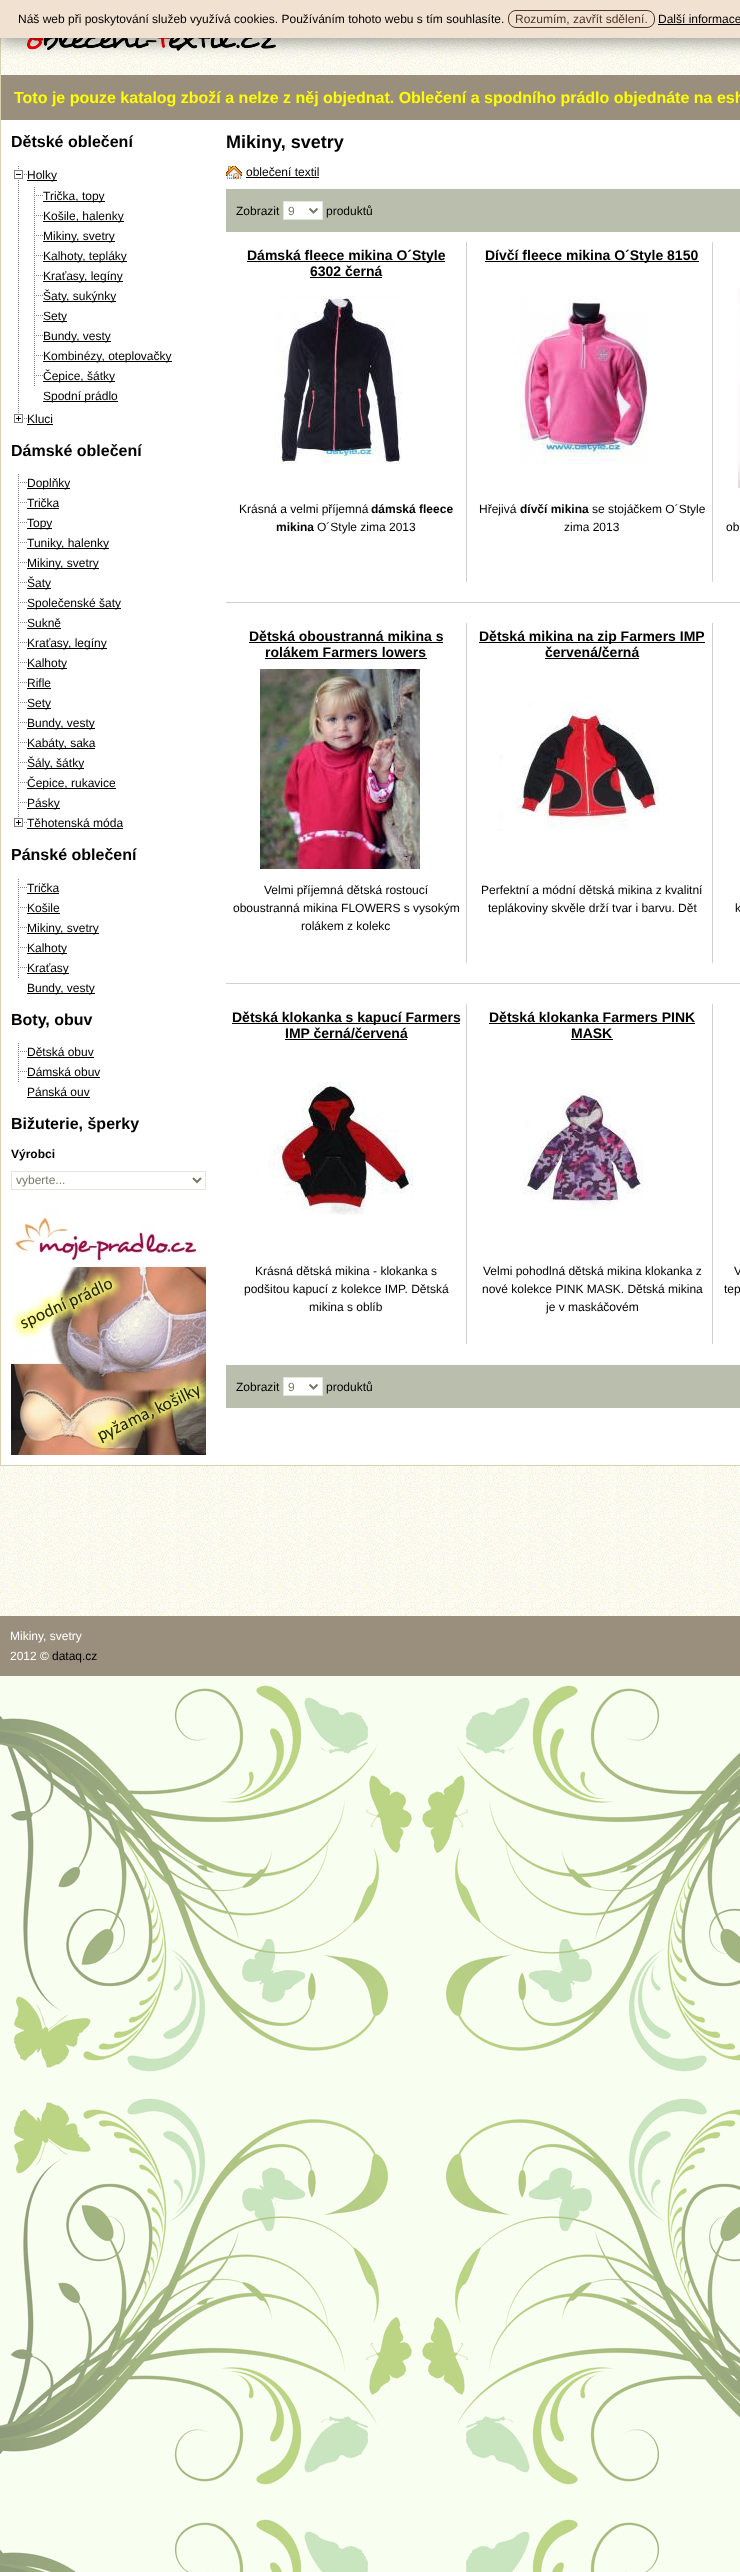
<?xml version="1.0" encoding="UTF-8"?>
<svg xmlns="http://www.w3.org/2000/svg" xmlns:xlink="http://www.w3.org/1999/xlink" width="740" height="2572">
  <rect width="100%" height="100%" fill="#ffffff" />
  <image x="0" y="1676" width="740" height="896" xlink:href="image1.png" />
  <image x="1" y="38" width="739" height="37" xlink:href="image2.png" />
  <rect y="38" width="1" height="82" fill="#d9d2ac" />
  <image x="27" y="38" width="249" height="13" xlink:href="image3.png" />
  <rect y="5" width="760" height="38" fill="#000000" fill-opacity="0.35" filter="blur(7.5px)" />
  <rect width="740" height="38" fill="#f1e1d1" />
  <rect x="508.5" y="10.5" width="146" height="17" rx="7.5" fill="none" stroke="#4d3721" />
  <rect x="658" y="24" width="82" height="1" fill="#000000" />
  <rect x="1" y="75" width="739" height="45" fill="#9a8e7d" />
  <rect y="1465" width="740" height="1" fill="#d9d2ac" />
  <rect y="120" width="1" height="1346" fill="#d9d2ac" />
  <image x="18" y="166" width="1" height="243" xlink:href="image4.png" />
  <image x="14" y="170" width="13" height="9" xlink:href="image5.png" />
  <rect x="27" y="180" width="30" height="1" fill="#000000" />
  <image x="34" y="187" width="9" height="19" xlink:href="image6.png" />
  <rect x="43" y="201" width="62" height="1" fill="#000000" />
  <image x="34" y="207" width="9" height="19" xlink:href="image6.png" />
  <rect x="43" y="221" width="81" height="1" fill="#000000" />
  <image x="34" y="227" width="9" height="19" xlink:href="image6.png" />
  <rect x="43" y="241" width="72" height="1" fill="#000000" />
  <image x="34" y="247" width="9" height="19" xlink:href="image6.png" />
  <rect x="43" y="261" width="84" height="1" fill="#000000" />
  <image x="34" y="267" width="9" height="19" xlink:href="image6.png" />
  <rect x="43" y="281" width="80" height="1" fill="#000000" />
  <image x="34" y="287" width="9" height="19" xlink:href="image6.png" />
  <rect x="43" y="301" width="73" height="1" fill="#000000" />
  <image x="34" y="307" width="9" height="19" xlink:href="image6.png" />
  <rect x="43" y="321" width="24" height="1" fill="#000000" />
  <image x="34" y="327" width="9" height="19" xlink:href="image6.png" />
  <rect x="43" y="341" width="68" height="1" fill="#000000" />
  <image x="34" y="347" width="9" height="19" xlink:href="image6.png" />
  <rect x="43" y="361" width="129" height="1" fill="#000000" />
  <image x="34" y="367" width="9" height="19" xlink:href="image6.png" />
  <rect x="43" y="381" width="72" height="1" fill="#000000" />
  <rect x="43" y="401" width="75" height="1" fill="#000000" />
  <image x="14" y="410" width="13" height="13" xlink:href="image7.png" />
  <rect x="27" y="424" width="26" height="1" fill="#000000" />
  <image x="18" y="474" width="9" height="19" xlink:href="image6.png" />
  <rect x="27" y="488" width="43" height="1" fill="#000000" />
  <image x="18" y="494" width="9" height="19" xlink:href="image6.png" />
  <rect x="27" y="508" width="32" height="1" fill="#000000" />
  <image x="18" y="514" width="9" height="19" xlink:href="image6.png" />
  <rect x="27" y="528" width="25" height="1" fill="#000000" />
  <image x="18" y="534" width="9" height="19" xlink:href="image6.png" />
  <rect x="27" y="548" width="82" height="1" fill="#000000" />
  <image x="18" y="554" width="9" height="19" xlink:href="image6.png" />
  <rect x="27" y="568" width="72" height="1" fill="#000000" />
  <image x="18" y="574" width="9" height="19" xlink:href="image6.png" />
  <rect x="27" y="588" width="24" height="1" fill="#000000" />
  <image x="18" y="594" width="9" height="19" xlink:href="image6.png" />
  <rect x="27" y="608" width="94" height="1" fill="#000000" />
  <image x="18" y="614" width="9" height="19" xlink:href="image6.png" />
  <rect x="27" y="628" width="34" height="1" fill="#000000" />
  <image x="18" y="634" width="9" height="19" xlink:href="image6.png" />
  <rect x="27" y="648" width="80" height="1" fill="#000000" />
  <image x="18" y="654" width="9" height="19" xlink:href="image6.png" />
  <rect x="27" y="668" width="40" height="1" fill="#000000" />
  <image x="18" y="674" width="9" height="19" xlink:href="image6.png" />
  <rect x="27" y="688" width="24" height="1" fill="#000000" />
  <image x="18" y="694" width="9" height="19" xlink:href="image6.png" />
  <rect x="27" y="708" width="24" height="1" fill="#000000" />
  <image x="18" y="714" width="9" height="19" xlink:href="image6.png" />
  <rect x="27" y="728" width="68" height="1" fill="#000000" />
  <image x="18" y="734" width="9" height="19" xlink:href="image6.png" />
  <rect x="27" y="748" width="68" height="1" fill="#000000" />
  <image x="18" y="754" width="9" height="19" xlink:href="image6.png" />
  <rect x="27" y="768" width="57" height="1" fill="#000000" />
  <image x="18" y="774" width="9" height="19" xlink:href="image6.png" />
  <rect x="27" y="788" width="89" height="1" fill="#000000" />
  <image x="18" y="794" width="9" height="19" xlink:href="image6.png" />
  <rect x="27" y="808" width="33" height="1" fill="#000000" />
  <image x="14" y="814" width="13" height="13" xlink:href="image7.png" />
  <rect x="27" y="828" width="96" height="1" fill="#000000" />
  <image x="18" y="879" width="9" height="19" xlink:href="image6.png" />
  <rect x="27" y="893" width="32" height="1" fill="#000000" />
  <image x="18" y="899" width="9" height="19" xlink:href="image6.png" />
  <rect x="27" y="913" width="33" height="1" fill="#000000" />
  <image x="18" y="919" width="9" height="19" xlink:href="image6.png" />
  <rect x="27" y="933" width="72" height="1" fill="#000000" />
  <image x="18" y="939" width="9" height="19" xlink:href="image6.png" />
  <rect x="27" y="953" width="40" height="1" fill="#000000" />
  <image x="18" y="959" width="9" height="19" xlink:href="image6.png" />
  <rect x="27" y="973" width="42" height="1" fill="#000000" />
  <rect x="27" y="993" width="68" height="1" fill="#000000" />
  <image x="18" y="1043" width="9" height="19" xlink:href="image6.png" />
  <rect x="27" y="1057" width="67" height="1" fill="#000000" />
  <image x="18" y="1063" width="9" height="19" xlink:href="image6.png" />
  <rect x="27" y="1077" width="73" height="1" fill="#000000" />
  <rect x="27" y="1097" width="63" height="1" fill="#000000" />
  <rect x="11.5" y="1171.5" width="194" height="18" fill="none" stroke="#e5e5dc" />
  <path d="M 193 1178 l 4 4 l 4 -4" fill="none" stroke="#797969" stroke-width="2" />
  <image x="11" y="1205" width="195" height="250" xlink:href="image8.png" />
  <image x="226" y="166" width="16" height="13" xlink:href="image9.png" />
  <rect x="246" y="177" width="73" height="1" fill="#000000" />
  <rect x="226" y="189" width="514" height="43" fill="#babead" />
  <rect x="283.5" y="201.5" width="39" height="18" fill="#ffffff" stroke="#e5e5dc" />
  <path d="M 309.5 208.5 l 4 4 l 4 -4" fill="none" stroke="#797969" stroke-width="2" />
  <rect x="247" y="261" width="198" height="1" fill="#000000" />
  <rect x="310" y="277" width="72" height="1" fill="#000000" />
  <image x="274" y="296" width="128" height="169" xlink:href="image10.png" />
  <rect x="466" y="242" width="1" height="340" fill="#d1d1d1" />
  <rect x="485" y="261" width="214" height="1" fill="#000000" />
  <image x="520" y="296" width="128" height="168" xlink:href="image11.png" />
  <rect x="712" y="242" width="1" height="340" fill="#d1d1d1" />
  <image x="738" y="288" width="2" height="200" xlink:href="image12.png" />
  <rect x="226" y="602" width="514" height="1" fill="#d1d1d1" />
  <rect x="249" y="642" width="194" height="1" fill="#000000" />
  <rect x="265" y="658" width="162" height="1" fill="#000000" />
  <image x="260" y="669" width="160" height="200" xlink:href="image13.png" />
  <rect x="466" y="623" width="1" height="340" fill="#d1d1d1" />
  <rect x="479" y="642" width="226" height="1" fill="#000000" />
  <rect x="545" y="658" width="94" height="1" fill="#000000" />
  <image x="499" y="702" width="160" height="129" xlink:href="image14.png" />
  <rect x="712" y="623" width="1" height="340" fill="#d1d1d1" />
  <rect x="226" y="983" width="514" height="1" fill="#d1d1d1" />
  <rect x="232" y="1023" width="228" height="1" fill="#000000" />
  <rect x="285" y="1039" width="122" height="1" fill="#000000" />
  <image x="269" y="1082" width="144" height="133" xlink:href="image15.png" />
  <rect x="466" y="1004" width="1" height="340" fill="#d1d1d1" />
  <rect x="489" y="1023" width="206" height="1" fill="#000000" />
  <rect x="571" y="1039" width="42" height="1" fill="#000000" />
  <image x="523" y="1088" width="120" height="122" xlink:href="image16.png" />
  <rect x="712" y="1004" width="1" height="340" fill="#d1d1d1" />
  <rect x="226" y="1365" width="514" height="43" fill="#babead" />
  <rect x="283.5" y="1377.5" width="39" height="18" fill="#ffffff" stroke="#e5e5dc" />
  <path d="M 309.5 1384.5 l 4 4 l 4 -4" fill="none" stroke="#797969" stroke-width="2" />
  <image x="0" y="1466" width="740" height="150" xlink:href="image17.png" />
  <rect y="1616" width="740" height="60" fill="#9a8e7d" />
  <text x="18" y="23" style="font-family: Liberation Sans; font-size: 12px; fill: #000000">Náš web při poskytování služeb využívá cookies. Používáním tohoto webu s tím souhlasíte.</text>
  <text x="515" y="23" style="font-family: Liberation Sans; font-size: 12px; fill: #4d3721">Rozumím, zavřít sdělení.</text>
  <text x="658" y="23" style="font-family: Liberation Sans; font-size: 12px; fill: #000000">Další informace</text>
  <text x="14" y="103" style="font-family: Liberation Sans; font-size: 16px; font-weight: bold; fill: #ffff00">Toto je pouze katalog zboží a nelze z něj objednat. Oblečení a spodního prádlo objednáte na esh</text>
  <text x="11" y="147" style="font-family: Liberation Sans; font-size: 16px; font-weight: bold; fill: #000000">Dětské oblečení</text>
  <text x="27" y="179" style="font-family: Liberation Sans; font-size: 12px; fill: #000000">Holky</text>
  <text x="43" y="200" style="font-family: Liberation Sans; font-size: 12px; fill: #000000">Trička, topy</text>
  <text x="43" y="220" style="font-family: Liberation Sans; font-size: 12px; fill: #000000">Košile, halenky</text>
  <text x="43" y="240" style="font-family: Liberation Sans; font-size: 12px; fill: #000000">Mikiny, svetry</text>
  <text x="43" y="260" style="font-family: Liberation Sans; font-size: 12px; fill: #000000">Kalhoty, tepláky</text>
  <text x="43" y="280" style="font-family: Liberation Sans; font-size: 12px; fill: #000000">Kraťasy, legíny</text>
  <text x="43" y="300" style="font-family: Liberation Sans; font-size: 12px; fill: #000000">Šaty, sukýnky</text>
  <text x="43" y="320" style="font-family: Liberation Sans; font-size: 12px; fill: #000000">Sety</text>
  <text x="43" y="340" style="font-family: Liberation Sans; font-size: 12px; fill: #000000">Bundy, vesty</text>
  <text x="43" y="360" style="font-family: Liberation Sans; font-size: 12px; fill: #000000">Kombinézy, oteplovačky</text>
  <text x="43" y="380" style="font-family: Liberation Sans; font-size: 12px; fill: #000000">Čepice, šátky</text>
  <text x="43" y="400" style="font-family: Liberation Sans; font-size: 12px; fill: #000000">Spodní prádlo</text>
  <text x="27" y="423" style="font-family: Liberation Sans; font-size: 12px; fill: #000000">Kluci</text>
  <text x="11" y="456" style="font-family: Liberation Sans; font-size: 16px; font-weight: bold; fill: #000000">Dámské oblečení</text>
  <text x="27" y="487" style="font-family: Liberation Sans; font-size: 12px; fill: #000000">Doplňky</text>
  <text x="27" y="507" style="font-family: Liberation Sans; font-size: 12px; fill: #000000">Trička</text>
  <text x="27" y="527" style="font-family: Liberation Sans; font-size: 12px; fill: #000000">Topy</text>
  <text x="27" y="547" style="font-family: Liberation Sans; font-size: 12px; fill: #000000">Tuniky, halenky</text>
  <text x="27" y="567" style="font-family: Liberation Sans; font-size: 12px; fill: #000000">Mikiny, svetry</text>
  <text x="27" y="587" style="font-family: Liberation Sans; font-size: 12px; fill: #000000">Šaty</text>
  <text x="27" y="607" style="font-family: Liberation Sans; font-size: 12px; fill: #000000">Společenské šaty</text>
  <text x="27" y="627" style="font-family: Liberation Sans; font-size: 12px; fill: #000000">Sukně</text>
  <text x="27" y="647" style="font-family: Liberation Sans; font-size: 12px; fill: #000000">Kraťasy, legíny</text>
  <text x="27" y="667" style="font-family: Liberation Sans; font-size: 12px; fill: #000000">Kalhoty</text>
  <text x="27" y="687" style="font-family: Liberation Sans; font-size: 12px; fill: #000000">Rifle</text>
  <text x="27" y="707" style="font-family: Liberation Sans; font-size: 12px; fill: #000000">Sety</text>
  <text x="27" y="727" style="font-family: Liberation Sans; font-size: 12px; fill: #000000">Bundy, vesty</text>
  <text x="27" y="747" style="font-family: Liberation Sans; font-size: 12px; fill: #000000">Kabáty, saka</text>
  <text x="27" y="767" style="font-family: Liberation Sans; font-size: 12px; fill: #000000">Šály, šátky</text>
  <text x="27" y="787" style="font-family: Liberation Sans; font-size: 12px; fill: #000000">Čepice, rukavice</text>
  <text x="27" y="807" style="font-family: Liberation Sans; font-size: 12px; fill: #000000">Pásky</text>
  <text x="27" y="827" style="font-family: Liberation Sans; font-size: 12px; fill: #000000">Těhotenská móda</text>
  <text x="11" y="860" style="font-family: Liberation Sans; font-size: 16px; font-weight: bold; fill: #000000">Pánské oblečení</text>
  <text x="27" y="892" style="font-family: Liberation Sans; font-size: 12px; fill: #000000">Trička</text>
  <text x="27" y="912" style="font-family: Liberation Sans; font-size: 12px; fill: #000000">Košile</text>
  <text x="27" y="932" style="font-family: Liberation Sans; font-size: 12px; fill: #000000">Mikiny, svetry</text>
  <text x="27" y="952" style="font-family: Liberation Sans; font-size: 12px; fill: #000000">Kalhoty</text>
  <text x="27" y="972" style="font-family: Liberation Sans; font-size: 12px; fill: #000000">Kraťasy</text>
  <text x="27" y="992" style="font-family: Liberation Sans; font-size: 12px; fill: #000000">Bundy, vesty</text>
  <text x="11" y="1025" style="font-family: Liberation Sans; font-size: 16px; font-weight: bold; fill: #000000">Boty, obuv</text>
  <text x="27" y="1056" style="font-family: Liberation Sans; font-size: 12px; fill: #000000">Dětská obuv</text>
  <text x="27" y="1076" style="font-family: Liberation Sans; font-size: 12px; fill: #000000">Dámská obuv</text>
  <text x="27" y="1096" style="font-family: Liberation Sans; font-size: 12px; fill: #000000">Pánská ouv</text>
  <text x="11" y="1129" style="font-family: Liberation Sans; font-size: 16px; font-weight: bold; fill: #000000">Bižuterie, šperky</text>
  <text x="11" y="1158" style="font-family: Liberation Sans; font-size: 12px; font-weight: bold; fill: #000000">Výrobci</text>
  <text x="16" y="1184" style="font-family: Liberation Sans; font-size: 12px; fill: #797969">vyberte...</text>
  <text x="226" y="148" style="font-family: Liberation Sans; font-size: 18px; font-weight: bold; fill: #000000">Mikiny, svetry</text>
  <text x="246" y="176" style="font-family: Liberation Sans; font-size: 12px; fill: #000000">oblečení textil</text>
  <text x="236" y="215" style="font-family: Liberation Sans; font-size: 12px; fill: #000000">Zobrazit</text>
  <text x="288" y="215" style="font-family: Liberation Sans; font-size: 12px; fill: #797969">9</text>
  <text x="326" y="215" style="font-family: Liberation Sans; font-size: 12px; fill: #000000">produktů</text>
  <text x="247" y="260" style="font-family: Liberation Sans; font-size: 14px; font-weight: bold; fill: #000000">Dámská fleece mikina O´Style</text>
  <text x="310" y="276" style="font-family: Liberation Sans; font-size: 14px; font-weight: bold; fill: #000000">6302 černá</text>
  <text x="239" y="513" style="font-family: Liberation Sans; font-size: 12px; fill: #000000">Krásná a velmi příjemná</text>
  <text x="371" y="513" style="font-family: Liberation Sans; font-size: 12px; font-weight: bold; fill: #000000">dámská fleece</text>
  <text x="276" y="531" style="font-family: Liberation Sans; font-size: 12px; font-weight: bold; fill: #000000">mikina</text>
  <text x="317" y="531" style="font-family: Liberation Sans; font-size: 12px; fill: #000000">O´Style zima 2013</text>
  <text x="485" y="260" style="font-family: Liberation Sans; font-size: 14px; font-weight: bold; fill: #000000">Dívčí fleece mikina O´Style 8150</text>
  <text x="479" y="513" style="font-family: Liberation Sans; font-size: 12px; fill: #000000">Hřejivá</text>
  <text x="520" y="513" style="font-family: Liberation Sans; font-size: 12px; font-weight: bold; fill: #000000">dívčí mikina</text>
  <text x="592" y="513" style="font-family: Liberation Sans; font-size: 12px; fill: #000000">se stojáčkem O´Style</text>
  <text x="564" y="531" style="font-family: Liberation Sans; font-size: 12px; fill: #000000">zima 2013</text>
  <text x="726" y="531" style="font-family: Liberation Sans; font-size: 12px; fill: #000000">ob</text>
  <text x="249" y="641" style="font-family: Liberation Sans; font-size: 14px; font-weight: bold; fill: #000000">Dětská oboustranná mikina s</text>
  <text x="265" y="657" style="font-family: Liberation Sans; font-size: 14px; font-weight: bold; fill: #000000">rolákem Farmers lowers</text>
  <text x="264" y="894" style="font-family: Liberation Sans; font-size: 12px; fill: #000000">Velmi příjemná dětská rostoucí</text>
  <text x="233" y="912" style="font-family: Liberation Sans; font-size: 12px; fill: #000000">oboustranná mikina FLOWERS s vysokým</text>
  <text x="301" y="930" style="font-family: Liberation Sans; font-size: 12px; fill: #000000">rolákem z kolekc</text>
  <text x="479" y="641" style="font-family: Liberation Sans; font-size: 14px; font-weight: bold; fill: #000000">Dětská mikina na zip Farmers IMP</text>
  <text x="545" y="657" style="font-family: Liberation Sans; font-size: 14px; font-weight: bold; fill: #000000">červená/černá</text>
  <text x="481" y="894" style="font-family: Liberation Sans; font-size: 12px; fill: #000000">Perfektní a módní dětská mikina z kvalitní</text>
  <text x="488" y="912" style="font-family: Liberation Sans; font-size: 12px; fill: #000000">teplákoviny skvěle drží tvar i barvu. Dět</text>
  <text x="735" y="912" style="font-family: Liberation Sans; font-size: 12px; fill: #000000">k</text>
  <text x="232" y="1022" style="font-family: Liberation Sans; font-size: 14px; font-weight: bold; fill: #000000">Dětská klokanka s kapucí Farmers</text>
  <text x="285" y="1038" style="font-family: Liberation Sans; font-size: 14px; font-weight: bold; fill: #000000">IMP černá/červená</text>
  <text x="255" y="1275" style="font-family: Liberation Sans; font-size: 12px; fill: #000000">Krásná dětská mikina - klokanka s</text>
  <text x="244" y="1293" style="font-family: Liberation Sans; font-size: 12px; fill: #000000">podšitou kapucí z kolekce IMP. Dětská</text>
  <text x="309" y="1311" style="font-family: Liberation Sans; font-size: 12px; fill: #000000">mikina s oblíb</text>
  <text x="489" y="1022" style="font-family: Liberation Sans; font-size: 14px; font-weight: bold; fill: #000000">Dětská klokanka Farmers PINK</text>
  <text x="571" y="1038" style="font-family: Liberation Sans; font-size: 14px; font-weight: bold; fill: #000000">MASK</text>
  <text x="483" y="1275" style="font-family: Liberation Sans; font-size: 12px; fill: #000000">Velmi pohodlná dětská mikina klokanka z</text>
  <text x="482" y="1293" style="font-family: Liberation Sans; font-size: 12px; fill: #000000">nové kolekce PINK MASK. Dětská mikina</text>
  <text x="546" y="1311" style="font-family: Liberation Sans; font-size: 12px; fill: #000000">je v maskáčovém</text>
  <text x="734" y="1275" style="font-family: Liberation Sans; font-size: 12px; fill: #000000">V</text>
  <text x="724" y="1293" style="font-family: Liberation Sans; font-size: 12px; fill: #000000">tep</text>
  <text x="236" y="1391" style="font-family: Liberation Sans; font-size: 12px; fill: #000000">Zobrazit</text>
  <text x="288" y="1391" style="font-family: Liberation Sans; font-size: 12px; fill: #797969">9</text>
  <text x="326" y="1391" style="font-family: Liberation Sans; font-size: 12px; fill: #000000">produktů</text>
  <text x="10" y="1640" style="font-family: Liberation Sans; font-size: 12px; fill: #ffffff">Mikiny, svetry</text>
  <text x="10" y="1660" style="font-family: Liberation Sans; font-size: 12px; fill: #ffffff">2012 ©</text>
  <text x="52" y="1660" style="font-family: Liberation Sans; font-size: 12px; fill: #000000">dataq.cz</text>
</svg>
